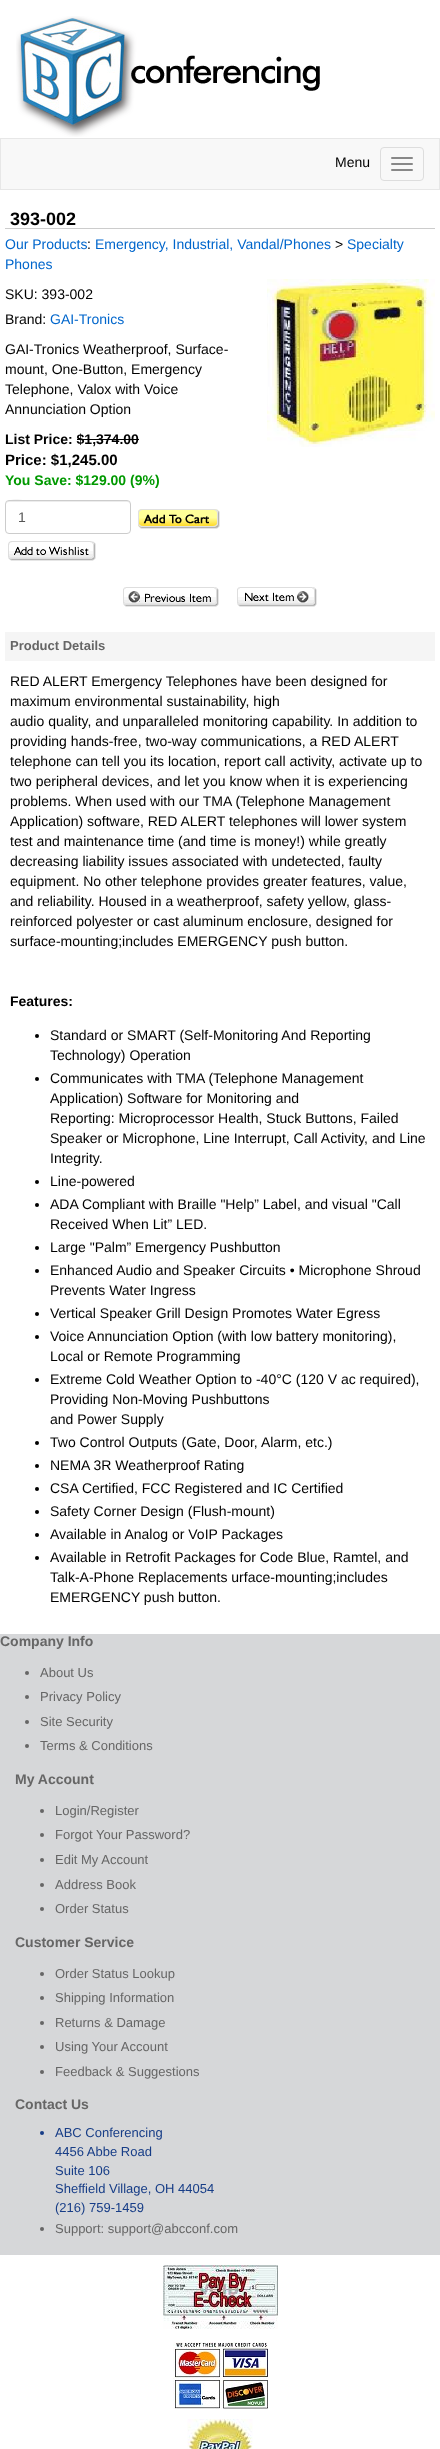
<?xml version="1.0" encoding="UTF-8"?>
<svg xmlns="http://www.w3.org/2000/svg" xmlns:xlink="http://www.w3.org/1999/xlink" width="440" height="2449">
  <rect width="100%" height="100%" fill="#ffffff" />
  <image x="16" y="16" width="304" height="121" xlink:href="image1.png" />
  <rect x="0.5" y="138.5" width="439" height="51" fill="#f8f8f8" stroke="#e7e7e7" />
  <rect x="380.5" y="147.5" width="43" height="33" rx="3.5" fill="none" stroke="#dddddd" />
  <rect x="391" y="157" width="22" height="2" rx="1" fill="#888888" />
  <rect x="391" y="163" width="22" height="2" rx="1" fill="#888888" />
  <rect x="391" y="169" width="22" height="2" rx="1" fill="#888888" />
  <rect x="5" y="228" width="430" height="1" fill="#cccccc" />
  <rect x="77" y="439" width="62" height="1" fill="#000000" />
  <path d="M 9 502 h 118 c 2 0 3 1 3 3 c 0 -2 -1 -4 -3 -4 h -98 c -1 0 -23 -5 -23 4 c 0 -2 1 -3 3 -3 z" fill="#ececec" />
  <rect x="5.5" y="500.5" width="125" height="33" rx="3.5" fill="none" stroke="#cccccc" />
  <image x="138" y="509" width="82" height="20" xlink:href="image2.png" />
  <image x="8" y="541" width="88" height="20" xlink:href="image3.png" />
  <image x="267" y="279" width="168" height="168" xlink:href="image4.png" />
  <image x="123" y="587" width="96" height="20" xlink:href="image5.png" />
  <image x="237" y="587" width="80" height="20" xlink:href="image6.png" />
  <rect x="5" y="632" width="430" height="29" fill="#f5f5f5" />
  <circle cx="37" cy="1036" r="2" fill="#000000" />
  <circle cx="37" cy="1079" r="2" fill="#000000" />
  <circle cx="37" cy="1182" r="2" fill="#000000" />
  <circle cx="37" cy="1205" r="2" fill="#000000" />
  <circle cx="37" cy="1248" r="2" fill="#000000" />
  <circle cx="37" cy="1271" r="2" fill="#000000" />
  <circle cx="37" cy="1314" r="2" fill="#000000" />
  <circle cx="37" cy="1337" r="2" fill="#000000" />
  <circle cx="37" cy="1380" r="2" fill="#000000" />
  <circle cx="37" cy="1443" r="2" fill="#000000" />
  <circle cx="37" cy="1466" r="2" fill="#000000" />
  <circle cx="37" cy="1489" r="2" fill="#000000" />
  <circle cx="37" cy="1512" r="2" fill="#000000" />
  <circle cx="37" cy="1535" r="2" fill="#000000" />
  <circle cx="37" cy="1558" r="2" fill="#000000" />
  <rect y="1634" width="440" height="621" fill="#d6d7d9" />
  <circle cx="27" cy="1673" r="2" fill="#666666" />
  <circle cx="27" cy="1697" r="2" fill="#666666" />
  <circle cx="27" cy="1722" r="2" fill="#666666" />
  <circle cx="27" cy="1746" r="2" fill="#666666" />
  <circle cx="42" cy="1811" r="2" fill="#666666" />
  <circle cx="42" cy="1835" r="2" fill="#666666" />
  <circle cx="42" cy="1860" r="2" fill="#666666" />
  <circle cx="42" cy="1885" r="2" fill="#666666" />
  <circle cx="42" cy="1909" r="2" fill="#666666" />
  <circle cx="42" cy="1974" r="2" fill="#666666" />
  <circle cx="42" cy="1998" r="2" fill="#666666" />
  <circle cx="42" cy="2023" r="2" fill="#666666" />
  <circle cx="42" cy="2047" r="2" fill="#666666" />
  <circle cx="42" cy="2072" r="2" fill="#666666" />
  <circle cx="42" cy="2133" r="2" fill="#173d87" />
  <circle cx="42" cy="2229" r="2" fill="#666666" />
  <image x="163" y="2265" width="115" height="64" xlink:href="image7.png" />
  <image x="173" y="2342" width="95" height="67" xlink:href="image8.png" />
  <image x="187" y="2419" width="66" height="30" xlink:href="image9.png" />
  <text x="335" y="167" style="font-family: Liberation Sans; font-size: 14px; fill: #000000">Menu</text>
  <text x="10" y="225" style="font-family: Liberation Sans; font-size: 18px; font-weight: bold; fill: #000000">393-002</text>
  <text x="5" y="249" style="font-family: Liberation Sans; font-size: 14px; fill: #0066cc">Our Products</text>
  <text x="87" y="249" style="font-family: Liberation Sans; font-size: 14px; fill: #000000">:</text>
  <text x="95" y="249" style="font-family: Liberation Sans; font-size: 14px; fill: #0066cc">Emergency, Industrial, Vandal/Phones</text>
  <text x="335" y="249" style="font-family: Liberation Sans; font-size: 14px; fill: #000000">&gt;</text>
  <text x="347" y="249" style="font-family: Liberation Sans; font-size: 14px; fill: #0066cc">Specialty</text>
  <text x="5" y="269" style="font-family: Liberation Sans; font-size: 14px; fill: #0066cc">Phones</text>
  <text x="5" y="299" style="font-family: Liberation Sans; font-size: 14px; fill: #000000">SKU: 393-002</text>
  <text x="5" y="324" style="font-family: Liberation Sans; font-size: 14px; fill: #000000">Brand:</text>
  <text x="50" y="324" style="font-family: Liberation Sans; font-size: 14px; fill: #0066cc">GAI-Tronics</text>
  <text x="5" y="354" style="font-family: Liberation Sans; font-size: 14px; fill: #000000">GAI-Tronics Weatherproof, Surface-</text>
  <text x="5" y="374" style="font-family: Liberation Sans; font-size: 14px; fill: #000000">mount, One-Button, Emergency</text>
  <text x="5" y="394" style="font-family: Liberation Sans; font-size: 14px; fill: #000000">Telephone, Valox with Voice</text>
  <text x="5" y="414" style="font-family: Liberation Sans; font-size: 14px; fill: #000000">Annunciation Option</text>
  <text x="5" y="444" style="font-family: Liberation Sans; font-size: 14px; font-weight: bold; fill: #000000">List Price: $1,374.00</text>
  <text x="5" y="465" style="font-family: Liberation Sans; font-size: 15px; font-weight: bold; fill: #000000">Price: $1,245.00</text>
  <text x="5" y="485" style="font-family: Liberation Sans; font-size: 14px; font-weight: bold; fill: #009900">You Save: $129.00 (9%)</text>
  <text x="18" y="522" style="font-family: Liberation Sans; font-size: 14px; fill: #555555">1</text>
  <text x="10" y="650" style="font-family: Liberation Sans; font-size: 13px; font-weight: bold; fill: #666666">Product Details</text>
  <text x="10" y="686" style="font-family: Liberation Sans; font-size: 14px; fill: #000000">RED ALERT Emergency Telephones have been designed for</text>
  <text x="10" y="706" style="font-family: Liberation Sans; font-size: 14px; fill: #000000">maximum environmental sustainability, high</text>
  <text x="10" y="726" style="font-family: Liberation Sans; font-size: 14px; fill: #000000">audio quality, and unparalleled monitoring capability. In addition to</text>
  <text x="10" y="746" style="font-family: Liberation Sans; font-size: 14px; fill: #000000">providing hands-free, two-way communications, a RED ALERT</text>
  <text x="10" y="766" style="font-family: Liberation Sans; font-size: 14px; fill: #000000">telephone can tell you its location, report call activity, activate up to</text>
  <text x="10" y="786" style="font-family: Liberation Sans; font-size: 14px; fill: #000000">two peripheral devices, and let you know when it is experiencing</text>
  <text x="10" y="806" style="font-family: Liberation Sans; font-size: 14px; fill: #000000">problems. When used with our TMA (Telephone Management</text>
  <text x="10" y="826" style="font-family: Liberation Sans; font-size: 14px; fill: #000000">Application) software, RED ALERT telephones will lower system</text>
  <text x="10" y="846" style="font-family: Liberation Sans; font-size: 14px; fill: #000000">test and maintenance time (and time is money!) while greatly</text>
  <text x="10" y="866" style="font-family: Liberation Sans; font-size: 14px; fill: #000000">decreasing liability issues associated with undetected, faulty</text>
  <text x="10" y="886" style="font-family: Liberation Sans; font-size: 14px; fill: #000000">equipment. No other telephone provides greater features, value,</text>
  <text x="10" y="906" style="font-family: Liberation Sans; font-size: 14px; fill: #000000">and reliability. Housed in a weatherproof, safety yellow, glass-</text>
  <text x="10" y="926" style="font-family: Liberation Sans; font-size: 14px; fill: #000000">reinforced polyester or cast aluminum enclosure, designed for</text>
  <text x="10" y="946" style="font-family: Liberation Sans; font-size: 14px; fill: #000000">surface-mounting;includes EMERGENCY push button.</text>
  <text x="10" y="1006" style="font-family: Liberation Sans; font-size: 14px; font-weight: bold; fill: #000000">Features:</text>
  <text x="50" y="1040" style="font-family: Liberation Sans; font-size: 14px; fill: #000000">Standard or SMART (Self-Monitoring And Reporting</text>
  <text x="50" y="1060" style="font-family: Liberation Sans; font-size: 14px; fill: #000000">Technology) Operation</text>
  <text x="50" y="1083" style="font-family: Liberation Sans; font-size: 14px; fill: #000000">Communicates with TMA (Telephone Management</text>
  <text x="50" y="1103" style="font-family: Liberation Sans; font-size: 14px; fill: #000000">Application) Software for Monitoring and</text>
  <text x="50" y="1123" style="font-family: Liberation Sans; font-size: 14px; fill: #000000">Reporting: Microprocessor Health, Stuck Buttons, Failed</text>
  <text x="50" y="1143" style="font-family: Liberation Sans; font-size: 14px; fill: #000000">Speaker or Microphone, Line Interrupt, Call Activity, and Line</text>
  <text x="50" y="1163" style="font-family: Liberation Sans; font-size: 14px; fill: #000000">Integrity.</text>
  <text x="50" y="1186" style="font-family: Liberation Sans; font-size: 14px; fill: #000000">Line-powered</text>
  <text x="50" y="1209" style="font-family: Liberation Sans; font-size: 14px; fill: #000000">ADA Compliant with Braille "Help” Label, and visual "Call</text>
  <text x="50" y="1229" style="font-family: Liberation Sans; font-size: 14px; fill: #000000">Received When Lit” LED.</text>
  <text x="50" y="1252" style="font-family: Liberation Sans; font-size: 14px; fill: #000000">Large "Palm” Emergency Pushbutton</text>
  <text x="50" y="1275" style="font-family: Liberation Sans; font-size: 14px; fill: #000000">Enhanced Audio and Speaker Circuits • Microphone Shroud</text>
  <text x="50" y="1295" style="font-family: Liberation Sans; font-size: 14px; fill: #000000">Prevents Water Ingress</text>
  <text x="50" y="1318" style="font-family: Liberation Sans; font-size: 14px; fill: #000000">Vertical Speaker Grill Design Promotes Water Egress</text>
  <text x="50" y="1341" style="font-family: Liberation Sans; font-size: 14px; fill: #000000">Voice Annunciation Option (with low battery monitoring),</text>
  <text x="50" y="1361" style="font-family: Liberation Sans; font-size: 14px; fill: #000000">Local or Remote Programming</text>
  <text x="50" y="1384" style="font-family: Liberation Sans; font-size: 14px; fill: #000000">Extreme Cold Weather Option to -40°C (120 V ac required),</text>
  <text x="50" y="1404" style="font-family: Liberation Sans; font-size: 14px; fill: #000000">Providing Non-Moving Pushbuttons</text>
  <text x="50" y="1424" style="font-family: Liberation Sans; font-size: 14px; fill: #000000">and Power Supply</text>
  <text x="50" y="1447" style="font-family: Liberation Sans; font-size: 14px; fill: #000000">Two Control Outputs (Gate, Door, Alarm, etc.)</text>
  <text x="50" y="1470" style="font-family: Liberation Sans; font-size: 14px; fill: #000000">NEMA 3R Weatherproof Rating</text>
  <text x="50" y="1493" style="font-family: Liberation Sans; font-size: 14px; fill: #000000">CSA Certified, FCC Registered and IC Certified</text>
  <text x="50" y="1516" style="font-family: Liberation Sans; font-size: 14px; fill: #000000">Safety Corner Design (Flush-mount)</text>
  <text x="50" y="1539" style="font-family: Liberation Sans; font-size: 14px; fill: #000000">Available in Analog or VoIP Packages</text>
  <text x="50" y="1562" style="font-family: Liberation Sans; font-size: 14px; fill: #000000">Available in Retrofit Packages for Code Blue, Ramtel, and</text>
  <text x="50" y="1582" style="font-family: Liberation Sans; font-size: 14px; fill: #000000">Talk-A-Phone Replacements urface-mounting;includes</text>
  <text x="50" y="1602" style="font-family: Liberation Sans; font-size: 14px; fill: #000000">EMERGENCY push button.</text>
  <text x="0" y="1646" style="font-family: Liberation Sans; font-size: 14px; font-weight: bold; fill: #666666">Company Info</text>
  <text x="40" y="1677" style="font-family: Liberation Sans; font-size: 13px; fill: #666666">About Us</text>
  <text x="40" y="1701" style="font-family: Liberation Sans; font-size: 13px; fill: #666666">Privacy Policy</text>
  <text x="40" y="1726" style="font-family: Liberation Sans; font-size: 13px; fill: #666666">Site Security</text>
  <text x="40" y="1750" style="font-family: Liberation Sans; font-size: 13px; fill: #666666">Terms &amp; Conditions</text>
  <text x="15" y="1784" style="font-family: Liberation Sans; font-size: 14px; font-weight: bold; fill: #666666">My Account</text>
  <text x="55" y="1815" style="font-family: Liberation Sans; font-size: 13px; fill: #666666">Login/Register</text>
  <text x="55" y="1839" style="font-family: Liberation Sans; font-size: 13px; fill: #666666">Forgot Your Password?</text>
  <text x="55" y="1864" style="font-family: Liberation Sans; font-size: 13px; fill: #666666">Edit My Account</text>
  <text x="55" y="1889" style="font-family: Liberation Sans; font-size: 13px; fill: #666666">Address Book</text>
  <text x="55" y="1913" style="font-family: Liberation Sans; font-size: 13px; fill: #666666">Order Status</text>
  <text x="15" y="1947" style="font-family: Liberation Sans; font-size: 14px; font-weight: bold; fill: #666666">Customer Service</text>
  <text x="55" y="1978" style="font-family: Liberation Sans; font-size: 13px; fill: #666666">Order Status Lookup</text>
  <text x="55" y="2002" style="font-family: Liberation Sans; font-size: 13px; fill: #666666">Shipping Information</text>
  <text x="55" y="2027" style="font-family: Liberation Sans; font-size: 13px; fill: #666666">Returns &amp; Damage</text>
  <text x="55" y="2051" style="font-family: Liberation Sans; font-size: 13px; fill: #666666">Using Your Account</text>
  <text x="55" y="2076" style="font-family: Liberation Sans; font-size: 13px; fill: #666666">Feedback &amp; Suggestions</text>
  <text x="15" y="2109" style="font-family: Liberation Sans; font-size: 14px; font-weight: bold; fill: #666666">Contact Us</text>
  <text x="55" y="2137" style="font-family: Liberation Sans; font-size: 13px; fill: #173d87">ABC Conferencing</text>
  <text x="55" y="2156" style="font-family: Liberation Sans; font-size: 13px; fill: #173d87">4456 Abbe Road</text>
  <text x="55" y="2175" style="font-family: Liberation Sans; font-size: 13px; fill: #173d87">Suite 106</text>
  <text x="55" y="2193" style="font-family: Liberation Sans; font-size: 13px; fill: #173d87">Sheffield Village, OH 44054</text>
  <text x="55" y="2212" style="font-family: Liberation Sans; font-size: 13px; fill: #173d87">(216) 759-1459</text>
  <text x="55" y="2233" style="font-family: Liberation Sans; font-size: 13px; fill: #666666">Support: support@abcconf.com</text>
</svg>
